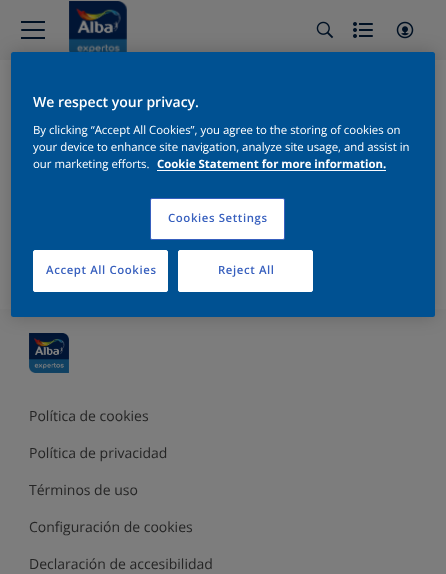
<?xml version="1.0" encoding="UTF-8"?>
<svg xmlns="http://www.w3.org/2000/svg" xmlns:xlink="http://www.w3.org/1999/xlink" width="446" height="574">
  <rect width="100%" height="100%" fill="#808080" />
  <rect width="446" height="60" fill="#7a7a7a" />
  <rect x="21" y="29" width="24" height="2" rx="1" fill="#001124" />
  <rect x="21" y="37" width="24" height="2" fill="#001124" />
  <image x="69" y="1" width="58" height="51" xlink:href="image1.png" />
  <image x="316" y="21" width="18" height="18" xlink:href="image2.png" />
  <image x="353" y="22" width="20" height="16" xlink:href="image3.png" />
  <image x="396" y="21" width="18" height="18" xlink:href="image4.png" />
  <rect y="309" width="446" height="265" fill="#7d7d7d" />
  <image x="29" y="333" width="40" height="40" xlink:href="image5.png" />
  <rect x="11" y="52" width="424" height="265" rx="2.5" fill="#000000" fill-opacity="0.2" filter="blur(9px)" />
  <rect x="11" y="52" width="424" height="265" rx="2.5" fill="#005192" />
  <rect x="157" y="170" width="229" height="1" fill="#fafbff" />
  <rect x="150.5" y="198.5" width="134" height="41" rx="1.5" fill="#ffffff" stroke="#3860be" />
  <rect x="33.5" y="250.5" width="134" height="41" rx="1.5" fill="#ffffff" stroke="#ffffff" />
  <rect x="178.5" y="250.5" width="134" height="41" rx="1.5" fill="#ffffff" stroke="#ffffff" />
  <rect x="21" y="21" width="24" height="2" fill="#001124" />
  <text x="33" y="107" style="font-family: Open Sans; font-size: 14px; font-weight: 600; fill: #ffffff">We respect your privacy.</text>
  <text x="33" y="134" style="font-family: Open Sans; font-size: 11.4px; fill: #ffffff">By clicking “Accept All Cookies”, you agree to the storing of cookies on</text>
  <text x="33" y="151" style="font-family: Open Sans; font-size: 11.4px; fill: #ffffff">your device to enhance site navigation, analyze site usage, and assist in</text>
  <text x="33" y="168" style="font-family: Open Sans; font-size: 11.4px; fill: #ffffff">our marketing efforts.</text>
  <text x="157" y="168" style="font-family: Open Sans; font-size: 11.4px; font-weight: bold; fill: #ffffff">Cookie Statement for more information.</text>
  <text x="168" y="222" style="font-family: Open Sans; font-size: 11.4px; font-weight: 600; letter-spacing: 0.6px; fill: #3860be">Cookies Settings</text>
  <text x="46" y="274" style="font-family: Open Sans; font-size: 11.4px; font-weight: 600; letter-spacing: 0.6px; fill: #3860be">Accept All Cookies</text>
  <text x="218" y="274" style="font-family: Open Sans; font-size: 11.4px; font-weight: 600; letter-spacing: 0.6px; fill: #3860be">Reject All</text>
  <text x="29" y="421" style="font-family: Open Sans; font-size: 14px; fill: #252525">Política de cookies</text>
  <text x="29" y="458" style="font-family: Open Sans; font-size: 14px; fill: #252525">Política de privacidad</text>
  <text x="29" y="495" style="font-family: Open Sans; font-size: 14px; fill: #252525">Términos de uso</text>
  <text x="29" y="532" style="font-family: Open Sans; font-size: 14px; fill: #252525">Configuración de cookies</text>
  <text x="29" y="569" style="font-family: Open Sans; font-size: 14px; fill: #252525">Declaración de accesibilidad</text>
</svg>
